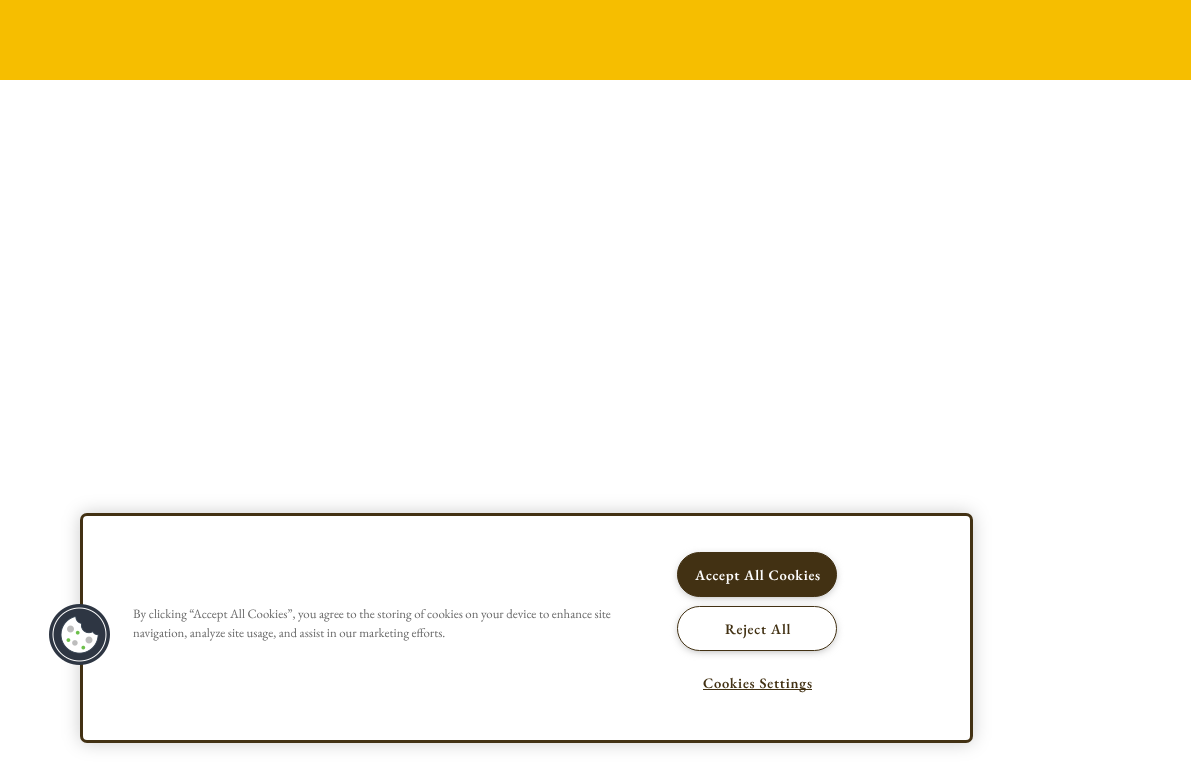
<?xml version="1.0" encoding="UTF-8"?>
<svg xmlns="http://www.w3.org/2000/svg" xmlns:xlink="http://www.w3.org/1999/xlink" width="1191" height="775">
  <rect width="100%" height="100%" fill="#ffffff" />
  <rect width="1191" height="80" fill="#f6be00" />
  <rect x="80" y="513" width="893" height="230" rx="7" fill="#000000" fill-opacity="0.2" filter="blur(9px)" />
  <rect x="81.5" y="514.5" width="890" height="227" rx="5.5" fill="#ffffff" stroke="#423113" stroke-width="3" />
  <image x="49" y="604" width="61" height="61" xlink:href="image1.png" />
  <rect x="680" y="557" width="154" height="39" rx="19.5" fill="#999999" filter="blur(5px)" />
  <rect x="677.5" y="552.5" width="159" height="44" rx="22" fill="#423113" stroke="#423113" />
  <rect x="680" y="611" width="154" height="39" rx="19.5" fill="#999999" filter="blur(5px)" />
  <rect x="677.5" y="606.5" width="159" height="44" rx="22" fill="#ffffff" stroke="#423113" />
  <rect x="703" y="689" width="109" height="1" fill="#423113" />
  <text x="133" y="618" style="font-family: EB Garamond; font-size: 12.8px; fill: #696969">By clicking “Accept All Cookies”, you agree to the storing of cookies on your device to enhance site</text>
  <text x="133" y="637" style="font-family: EB Garamond; font-size: 12.8px; fill: #696969">navigation, analyze site usage, and assist in our marketing efforts.</text>
  <text x="695" y="580" style="font-family: EB Garamond; font-size: 14.5px; font-weight: 600; letter-spacing: 0.75px; fill: #ffffff">Accept All Cookies</text>
  <text x="725" y="634" style="font-family: EB Garamond; font-size: 14.5px; font-weight: 600; letter-spacing: 0.75px; fill: #423113">Reject All</text>
  <text x="703" y="688" style="font-family: EB Garamond; font-size: 14.5px; font-weight: 600; letter-spacing: 0.75px; fill: #423113">Cookies Settings</text>
</svg>
